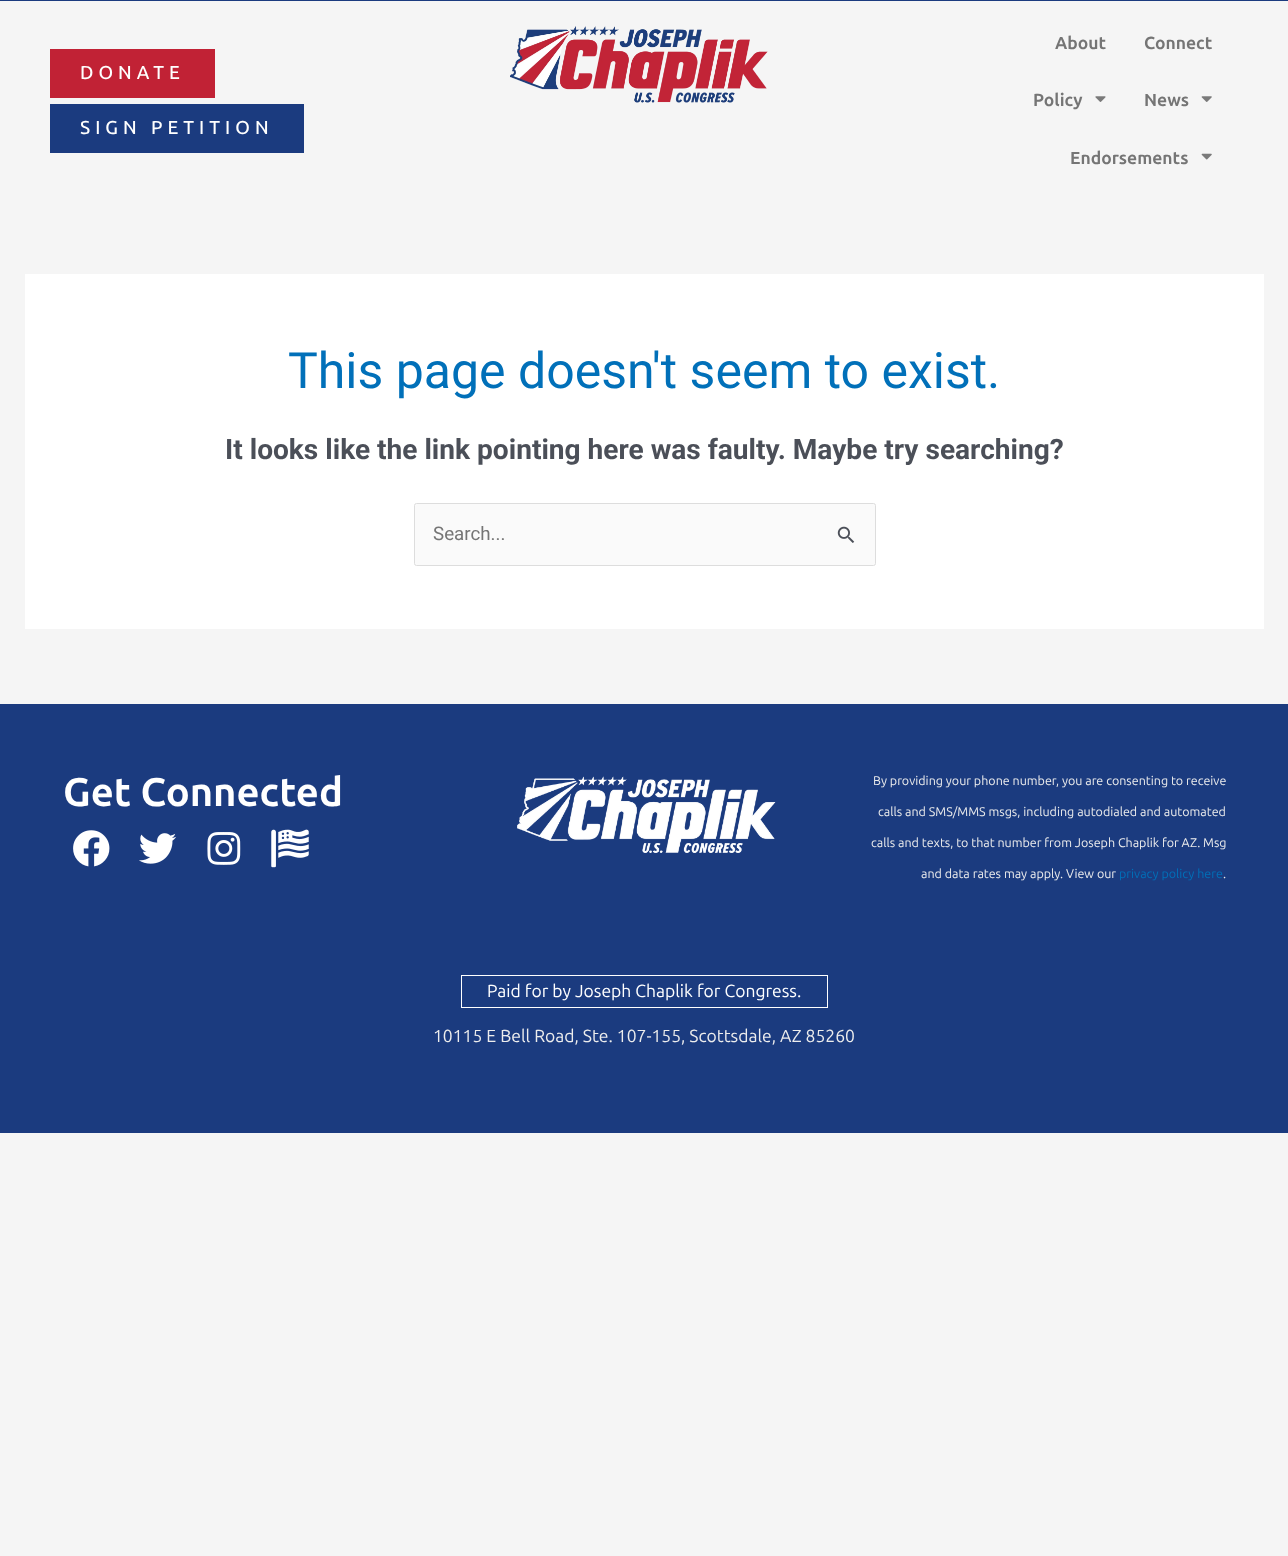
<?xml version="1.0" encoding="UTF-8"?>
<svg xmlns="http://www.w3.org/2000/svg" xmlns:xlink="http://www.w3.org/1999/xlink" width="1288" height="1556">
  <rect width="100%" height="100%" fill="#f5f5f5" />
  <rect width="1288" height="1" fill="#1b3b7f" />
  <rect x="50" y="49" width="165" height="49" fill="#c12235" />
  <rect x="50" y="104" width="254" height="49" fill="#1b3b7f" />
  <image x="510" y="26" width="258" height="77" xlink:href="image1.png" />
  <image x="1095" y="96" width="11" height="6" xlink:href="image2.png" />
  <image x="1201" y="96" width="11" height="6" xlink:href="image3.png" />
  <image x="1201" y="153" width="11" height="7" xlink:href="image4.png" />
  <rect x="25" y="274" width="1239" height="355" fill="#ffffff" />
  <rect x="414.5" y="503.5" width="461" height="62" rx="2" fill="#fafafa" stroke="#dddddd" />
  <image x="837" y="526" width="18" height="17" xlink:href="image5.png" />
  <rect y="704" width="1288" height="429" fill="#1b3b7f" />
  <image x="73" y="830" width="37" height="37" xlink:href="image6.png" />
  <image x="139" y="833" width="38" height="31" xlink:href="image7.png" />
  <image x="207" y="832" width="34" height="33" xlink:href="image8.png" />
  <image x="271" y="829" width="38" height="39" xlink:href="image9.png" />
  <image x="517" y="776" width="259" height="77" xlink:href="image10.png" />
  <rect x="461.5" y="975.5" width="366" height="32" fill="none" stroke="#ffffff" />
  <text x="80" y="79" style="font-family: Ubuntu; font-size: 18.75px; font-weight: 500; letter-spacing: 5px; fill: #ffffff">DONATE</text>
  <text x="80" y="134" style="font-family: Ubuntu; font-size: 18.75px; font-weight: 500; letter-spacing: 5px; fill: #ffffff">SIGN PETITION</text>
  <text x="1055" y="49" style="font-family: Ubuntu; font-size: 17.5px; font-weight: bold; fill: #757575">About</text>
  <text x="1144" y="49" style="font-family: Ubuntu; font-size: 17.5px; font-weight: bold; fill: #757575">Connect</text>
  <text x="1033" y="106" style="font-family: Ubuntu; font-size: 17.5px; font-weight: bold; fill: #757575">Policy</text>
  <text x="1144" y="106" style="font-family: Ubuntu; font-size: 17.5px; font-weight: bold; fill: #757575">News</text>
  <text x="1070" y="164" style="font-family: Ubuntu; font-size: 17.5px; font-weight: bold; fill: #757575">Endorsements</text>
  <text x="288" y="388" style="font-family: Roboto; font-size: 50px; fill: #0170b9">This page doesn't seem to exist.</text>
  <text x="225" y="459" style="font-family: Roboto; font-size: 28.1px; font-weight: bold; fill: #4b4f58">It looks like the link pointing here was faulty. Maybe try searching?</text>
  <text x="433" y="540" style="font-family: Roboto; font-size: 18.75px; fill: #757575">Search...</text>
  <text x="63" y="806" style="font-family: Ubuntu; font-size: 40px; font-weight: bold; fill: #ffffff">Get Connected</text>
  <text x="873" y="785" style="font-family: Ubuntu; font-size: 12.5px; fill: #ededed">By providing your phone number, you are consenting to receive</text>
  <text x="878" y="816" style="font-family: Ubuntu; font-size: 12.5px; fill: #ededed">calls and SMS/MMS msgs, including autodialed and automated</text>
  <text x="871" y="847" style="font-family: Ubuntu; font-size: 12.5px; fill: #ededed">calls and texts, to that number from Joseph Chaplik for AZ. Msg</text>
  <text x="921" y="878" style="font-family: Ubuntu; font-size: 12.5px; fill: #ededed">and data rates may apply. View our</text>
  <text x="1119" y="878" style="font-family: Ubuntu; font-size: 12.5px; fill: #0170b9">privacy policy here</text>
  <text x="1223" y="878" style="font-family: Ubuntu; font-size: 12.5px; fill: #ededed">.</text>
  <text x="487" y="997" style="font-family: Ubuntu; font-size: 17.5px; fill: #ffffff">Paid for by Joseph Chaplik for Congress.</text>
  <text x="433" y="1042" style="font-family: Ubuntu; font-size: 17.5px; fill: #ededed">10115 E Bell Road, Ste. 107-155, Scottsdale, AZ 85260</text>
</svg>
